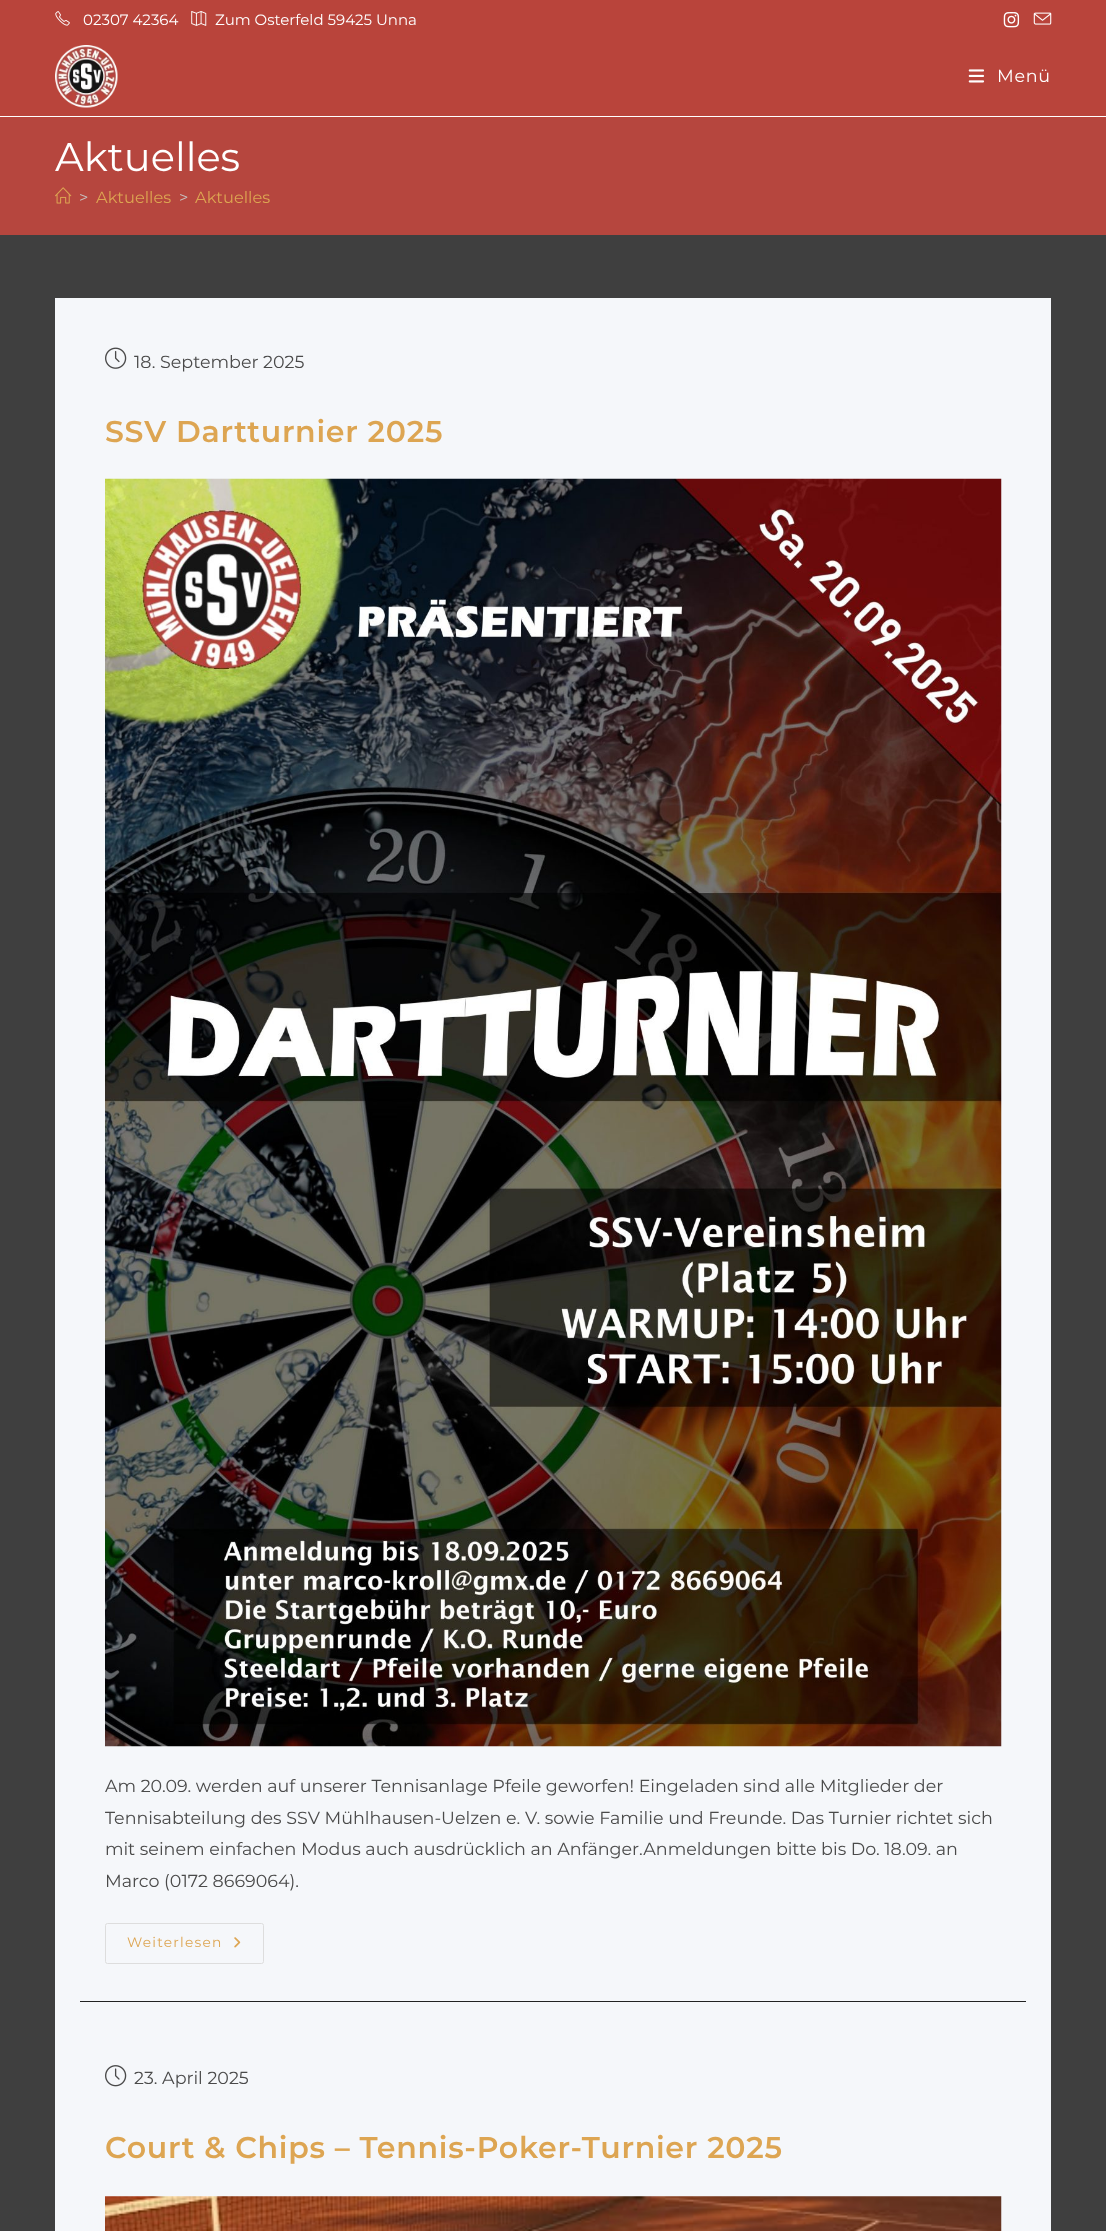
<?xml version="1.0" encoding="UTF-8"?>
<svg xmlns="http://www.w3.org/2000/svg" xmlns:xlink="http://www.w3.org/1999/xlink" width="1106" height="2231">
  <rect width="100%" height="100%" fill="#3f3f3f" />
  <rect width="1106" height="118" fill="#b9443b" />
  <image x="55" y="11" width="15" height="15" xlink:href="image1.png" />
  <image x="191" y="11" width="16" height="15" xlink:href="image2.png" />
  <image x="1003" y="12" width="17" height="16" xlink:href="image3.png" />
  <image x="1033" y="12" width="19" height="13" xlink:href="image4.png" />
  <rect y="116" width="1106" height="1" fill="#ffffff" />
  <image x="55" y="45" width="63" height="63" xlink:href="image5.png" />
  <image x="968" y="69" width="17" height="14" xlink:href="image6.png" />
  <rect y="118" width="1106" height="117" fill="#b6463e" />
  <image x="55" y="187" width="17" height="17" xlink:href="image7.png" />
  <rect x="55" y="298" width="996" height="1933" fill="#f5f7fa" />
  <rect x="80" y="2001" width="946" height="1" fill="#222222" />
  <image x="105" y="347" width="22" height="22" xlink:href="image8.png" />
  <image x="105" y="478" width="897" height="1269" xlink:href="image9.png" />
  <rect x="105.5" y="1923.5" width="158" height="40" rx="2" fill="none" stroke="#dddddd" />
  <image x="234" y="1937" width="7" height="11" xlink:href="image10.png" />
  <image x="105" y="2065" width="22" height="22" xlink:href="image11.png" />
  <image x="105" y="2196" width="897" height="35" xlink:href="image12.png" />
  <text x="83" y="25" style="font-family: Montserrat; font-size: 15px; fill: #ffffff">02307 42364</text>
  <text x="215" y="25" style="font-family: Montserrat; font-size: 15px; fill: #ffffff">Zum Osterfeld 59425 Unna</text>
  <text x="997" y="82" style="font-family: Montserrat; font-size: 17.5px; letter-spacing: 0.75px; fill: #ffffff">Menü</text>
  <text x="55" y="171" style="font-family: Montserrat; font-size: 40px; fill: #ffffff">Aktuelles</text>
  <text x="79" y="203" style="font-family: Montserrat; font-size: 16.25px; fill: #c6c6c6">&gt;</text>
  <text x="96" y="203" style="font-family: Montserrat; font-size: 16.25px; fill: #dda552">Aktuelles</text>
  <text x="179" y="203" style="font-family: Montserrat; font-size: 16.25px; fill: #c6c6c6">&gt;</text>
  <text x="195" y="203" style="font-family: Montserrat; font-size: 16.25px; fill: #dda552">Aktuelles</text>
  <text x="134" y="368" style="font-family: Montserrat; font-size: 17.5px; fill: #4a4a4a">18. September 2025</text>
  <text x="105" y="442" style="font-family: Montserrat; font-size: 30px; font-weight: 600; letter-spacing: 0.75px; fill: #dda552">SSV Dartturnier 2025</text>
  <text x="105" y="1792" style="font-family: Montserrat; font-size: 17.5px; fill: #4a4a4a">Am 20.09. werden auf unserer Tennisanlage Pfeile geworfen! Eingeladen sind alle Mitglieder der</text>
  <text x="105" y="1824" style="font-family: Montserrat; font-size: 17.5px; fill: #4a4a4a">Tennisabteilung des SSV Mühlhausen-Uelzen e. V. sowie Familie und Freunde. Das Turnier richtet sich</text>
  <text x="105" y="1855" style="font-family: Montserrat; font-size: 17.5px; fill: #4a4a4a">mit seinem einfachen Modus auch ausdrücklich an Anfänger.Anmeldungen bitte bis Do. 18.09. an</text>
  <text x="105" y="1887" style="font-family: Montserrat; font-size: 17.5px; fill: #4a4a4a">Marco (0172 8669064).</text>
  <text x="127" y="1947" style="font-family: Montserrat; font-size: 13.75px; letter-spacing: 1.25px; fill: #dda552">Weiterlesen</text>
  <text x="134" y="2084" style="font-family: Montserrat; font-size: 17.5px; fill: #4a4a4a">23. April 2025</text>
  <text x="105" y="2158" style="font-family: Montserrat; font-size: 30px; font-weight: 600; letter-spacing: 0.75px; fill: #dda552">Court &amp; Chips – Tennis-Poker-Turnier 2025</text>
</svg>
